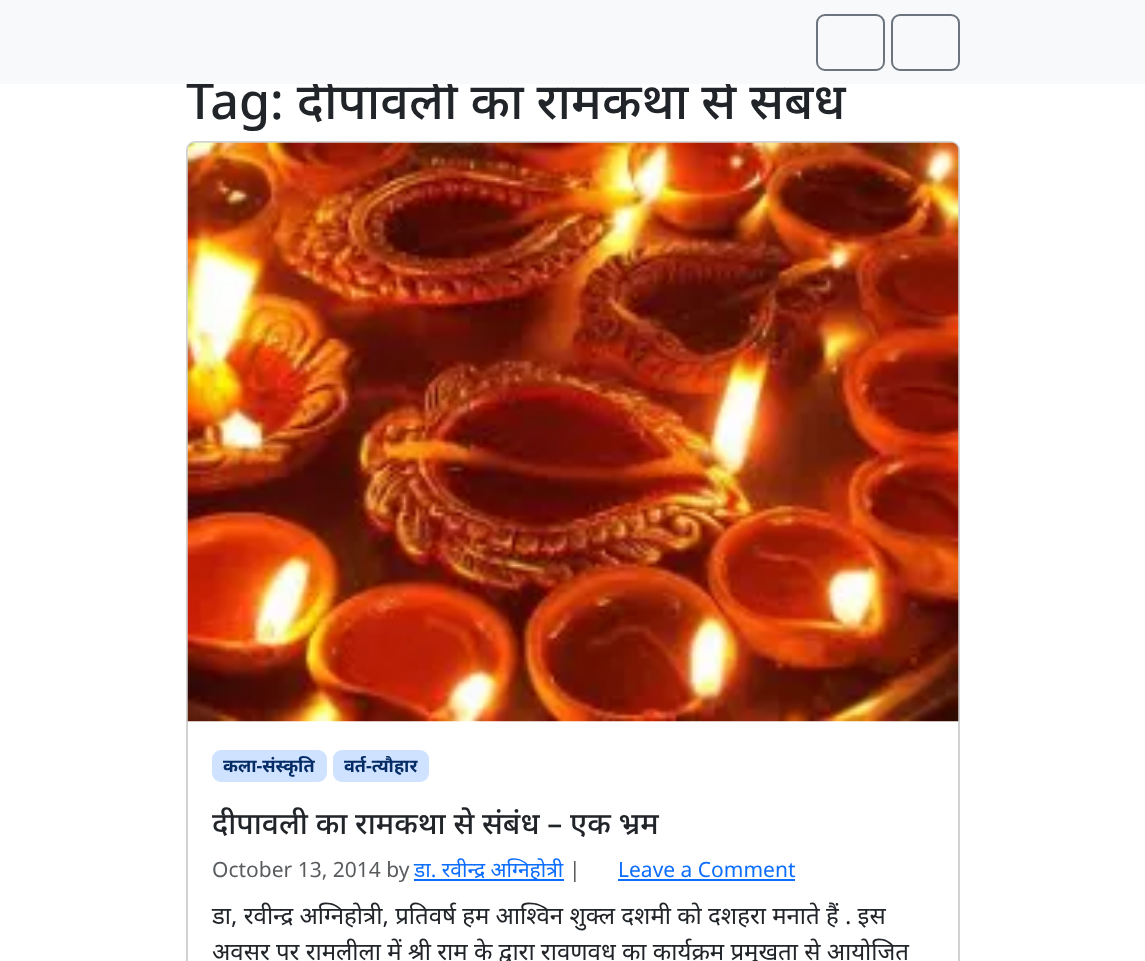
<?xml version="1.0" encoding="UTF-8"?>
<svg xmlns="http://www.w3.org/2000/svg" xmlns:xlink="http://www.w3.org/1999/xlink" width="1145" height="961">
  <rect width="100%" height="100%" fill="#ffffff" />
  <rect x="187" y="142" width="772" height="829" rx="8" fill="none" stroke="#d2d2d2" stroke-width="2" />
  <image x="187" y="142" width="772" height="580" xlink:href="image1.png" />
  <rect x="212" y="750" width="115" height="32" rx="9" fill="#cfe2ff" />
  <rect x="333" y="750" width="96" height="32" rx="9" fill="#cfe2ff" />
  <rect x="414" y="879" width="150" height="2" fill="#0d6efd" />
  <rect x="618" y="879" width="177" height="2" fill="#0d6efd" />
  <text x="186" y="119" style="font-family: Noto Sans; font-size: 50.25px; font-weight: 500; fill: #212529">Tag: दीपावली का रामकथा से संबंध</text>
  <rect width="1145" height="84" fill="#f8f9fa" />
  <rect x="892" y="15" width="67" height="55" rx="8" fill="none" stroke="#6c757d" stroke-width="2" />
  <rect x="817" y="15" width="67" height="55" rx="8" fill="none" stroke="#6c757d" stroke-width="2" />
  <text x="223" y="772" style="font-family: Noto Sans; font-size: 18px; font-weight: bold; fill: #052c65">कला-संस्कृति</text>
  <text x="344" y="772" style="font-family: Noto Sans; font-size: 18px; font-weight: bold; fill: #052c65">वर्त-त्यौहार</text>
  <text x="212" y="834" style="font-family: Noto Sans; font-size: 30px; font-weight: 500; fill: #212529">दीपावली का रामकथा से संबंध – एक भ्रम</text>
  <text x="212" y="877" style="font-family: Noto Sans; font-size: 21px; fill: #595c5f">October 13, 2014 by</text>
  <text x="414" y="877" style="font-family: Noto Sans; font-size: 21px; fill: #0d6efd">डा. रवीन्द्र अग्निहोत्री</text>
  <text x="569" y="877" style="font-family: Noto Sans; font-size: 21px; fill: #595c5f">|</text>
  <text x="618" y="877" style="font-family: Noto Sans; font-size: 21px; fill: #0d6efd">Leave a Comment</text>
  <text x="212" y="924" style="font-family: Noto Sans; font-size: 24px; fill: #212529">डा, रवीन्द्र अग्निहोत्री, प्रतिवर्ष हम आश्विन शुक्ल दशमी को दशहरा मनाते हैं . इस</text>
  <text x="212" y="960" style="font-family: Noto Sans; font-size: 24px; fill: #212529">अवसर पर रामलीला में श्री राम के द्वारा रावणवध का कार्यक्रम प्रमुखता से आयोजित</text>
</svg>
